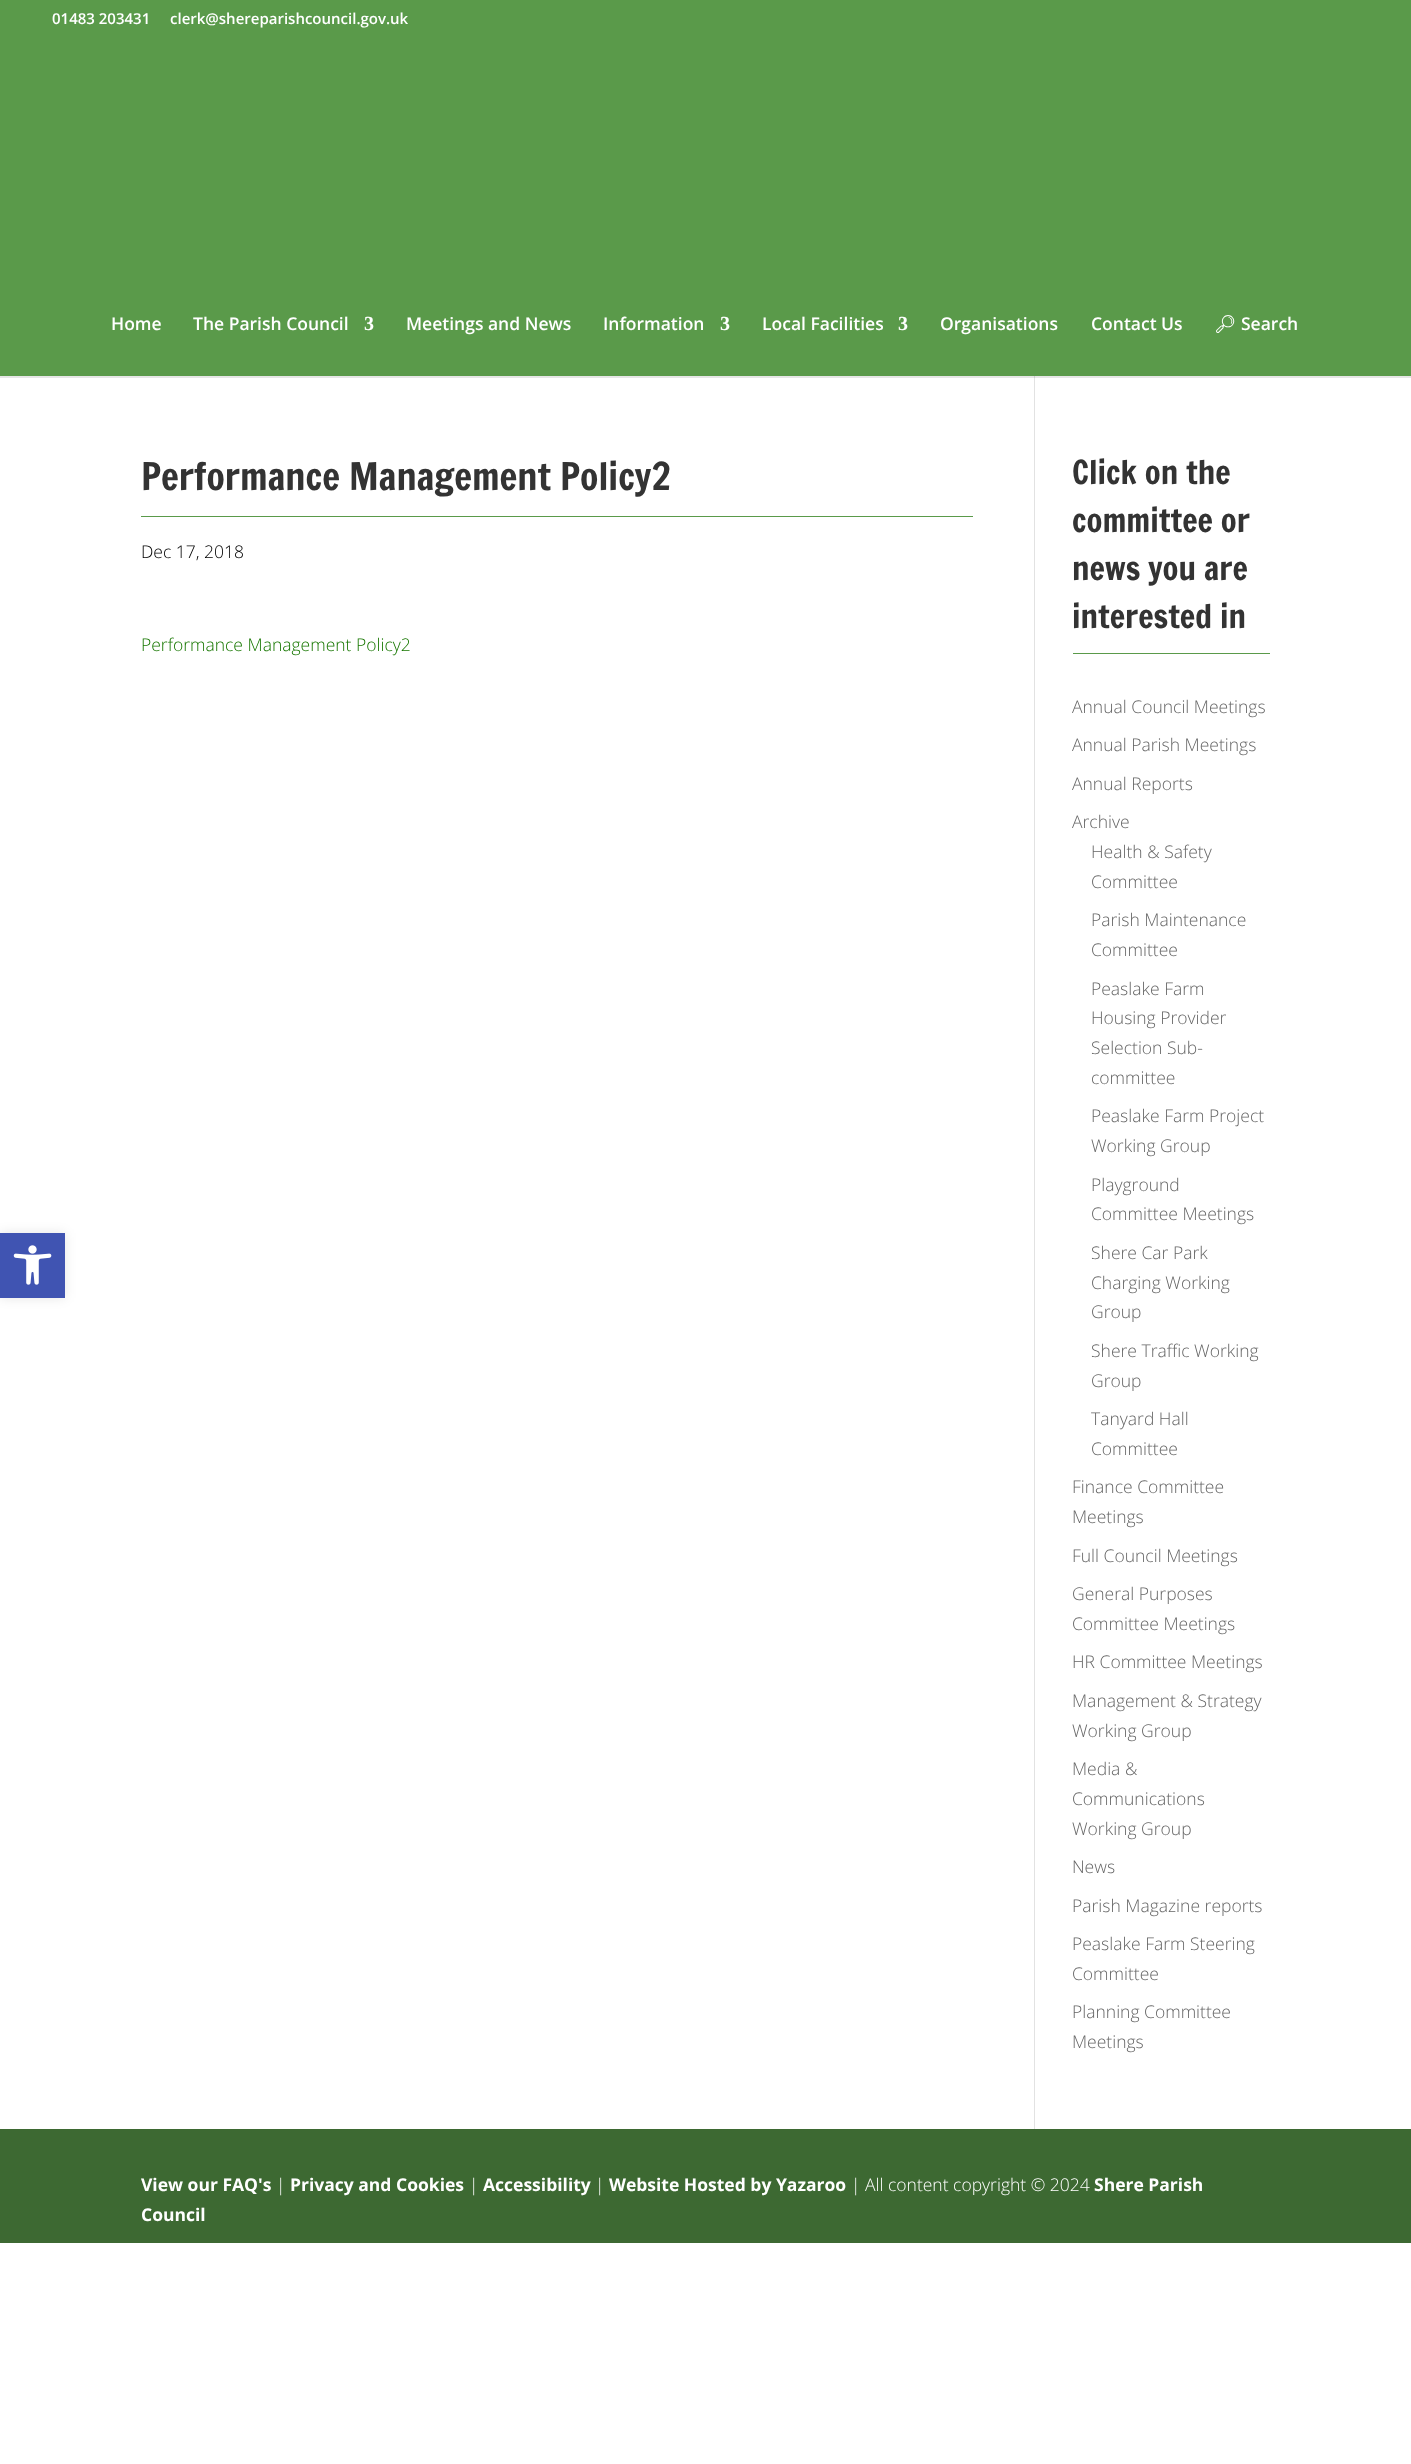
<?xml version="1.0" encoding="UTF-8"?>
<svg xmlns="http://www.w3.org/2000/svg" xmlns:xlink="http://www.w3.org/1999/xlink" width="1411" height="2464">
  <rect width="100%" height="100%" fill="#ffffff" />
  <rect y="376" width="1411" height="2" fill="#e6e6e6" />
  <rect y="1233" width="65" height="65" fill="#000000" fill-opacity="0.1" filter="blur(6px)" />
  <rect y="1233" width="65" height="65" fill="#4054b2" />
  <image x="13" y="1245" width="39" height="40" xlink:href="image1.png" />
  <rect width="1411" height="376" fill="#5a9a4a" />
  <rect x="1034" y="376" width="1" height="1753" fill="#e2e2e2" />
  <rect x="1034" y="376" width="1" height="2" fill="#cbcbcb" />
  <rect x="141" y="516" width="832" height="1" fill="#5a9a4a" />
  <rect x="1073" y="653" width="197" height="1" fill="#5a9a4a" />
  <rect y="2129" width="1411" height="114" fill="#3d6932" />
  <text x="52" y="24" style="font-family: Open Sans; font-size: 15px; font-weight: 600; fill: #ffffff">01483 203431</text>
  <text x="170" y="24" style="font-family: Open Sans; font-size: 15px; font-weight: 600; fill: #ffffff">clerk@shereparishcouncil.gov.uk</text>
  <text x="111" y="330" style="font-family: Open Sans; font-size: 17.5px; font-weight: 600; fill: #ffffff">Home</text>
  <text x="193" y="330" style="font-family: Open Sans; font-size: 17.5px; font-weight: 600; fill: #ffffff">The Parish Council</text>
  <text x="364" y="330" style="font-family: Liberation Serif; font-size: 20px; font-weight: bold; fill: #ffffff">3</text>
  <text x="406" y="330" style="font-family: Open Sans; font-size: 17.5px; font-weight: 600; fill: #ffffff">Meetings and News</text>
  <text x="603" y="330" style="font-family: Open Sans; font-size: 17.5px; font-weight: 600; fill: #ffffff">Information</text>
  <text x="720" y="330" style="font-family: Liberation Serif; font-size: 20px; font-weight: bold; fill: #ffffff">3</text>
  <text x="762" y="330" style="font-family: Open Sans; font-size: 17.5px; font-weight: 600; fill: #ffffff">Local Facilities</text>
  <text x="898" y="330" style="font-family: Liberation Serif; font-size: 20px; font-weight: bold; fill: #ffffff">3</text>
  <text x="940" y="330" style="font-family: Open Sans; font-size: 17.5px; font-weight: 600; fill: #ffffff">Organisations</text>
  <text x="1091" y="330" style="font-family: Open Sans; font-size: 17.5px; font-weight: 600; fill: #ffffff">Contact Us</text>
  <text x="1214" y="330" style="font-family: Noto Emoji; font-size: 17.5px; font-weight: 600; fill: #ffffff">🔎︎</text>
  <text x="1241" y="330" style="font-family: Open Sans; font-size: 17.5px; font-weight: 600; fill: #ffffff">Search</text>
  <text x="141" y="490" style="font-family: Francois One; font-size: 37.5px; fill: #333333">Performance Management Policy2</text>
  <text x="141" y="558" style="font-family: Open Sans; font-size: 17.5px; font-weight: 300; fill: #000000">Dec 17, 2018</text>
  <text x="141" y="651" style="font-family: Open Sans; font-size: 17.5px; font-weight: 300; fill: #177700">Performance Management Policy2</text>
  <text x="1072" y="484" style="font-family: Francois One; font-size: 32.5px; fill: #333333">Click on the</text>
  <text x="1072" y="532" style="font-family: Francois One; font-size: 32.5px; fill: #333333">committee or</text>
  <text x="1072" y="580" style="font-family: Francois One; font-size: 32.5px; fill: #333333">news you are</text>
  <text x="1072" y="628" style="font-family: Francois One; font-size: 32.5px; fill: #333333">interested in</text>
  <text x="1072" y="713" style="font-family: Open Sans; font-size: 17.5px; font-weight: 300; fill: #666666">Annual Council Meetings</text>
  <text x="1072" y="751" style="font-family: Open Sans; font-size: 17.5px; font-weight: 300; fill: #666666">Annual Parish Meetings</text>
  <text x="1072" y="790" style="font-family: Open Sans; font-size: 17.5px; font-weight: 300; fill: #666666">Annual Reports</text>
  <text x="1072" y="828" style="font-family: Open Sans; font-size: 17.5px; font-weight: 300; fill: #666666">Archive</text>
  <text x="1091" y="858" style="font-family: Open Sans; font-size: 17.5px; font-weight: 300; fill: #666666">Health &amp; Safety</text>
  <text x="1091" y="888" style="font-family: Open Sans; font-size: 17.5px; font-weight: 300; fill: #666666">Committee</text>
  <text x="1091" y="926" style="font-family: Open Sans; font-size: 17.5px; font-weight: 300; fill: #666666">Parish Maintenance</text>
  <text x="1091" y="956" style="font-family: Open Sans; font-size: 17.5px; font-weight: 300; fill: #666666">Committee</text>
  <text x="1091" y="995" style="font-family: Open Sans; font-size: 17.5px; font-weight: 300; fill: #666666">Peaslake Farm</text>
  <text x="1091" y="1024" style="font-family: Open Sans; font-size: 17.5px; font-weight: 300; fill: #666666">Housing Provider</text>
  <text x="1091" y="1054" style="font-family: Open Sans; font-size: 17.5px; font-weight: 300; fill: #666666">Selection Sub-</text>
  <text x="1091" y="1084" style="font-family: Open Sans; font-size: 17.5px; font-weight: 300; fill: #666666">committee</text>
  <text x="1091" y="1122" style="font-family: Open Sans; font-size: 17.5px; font-weight: 300; fill: #666666">Peaslake Farm Project</text>
  <text x="1091" y="1152" style="font-family: Open Sans; font-size: 17.5px; font-weight: 300; fill: #666666">Working Group</text>
  <text x="1091" y="1191" style="font-family: Open Sans; font-size: 17.5px; font-weight: 300; fill: #666666">Playground</text>
  <text x="1091" y="1220" style="font-family: Open Sans; font-size: 17.5px; font-weight: 300; fill: #666666">Committee Meetings</text>
  <text x="1091" y="1259" style="font-family: Open Sans; font-size: 17.5px; font-weight: 300; fill: #666666">Shere Car Park</text>
  <text x="1091" y="1289" style="font-family: Open Sans; font-size: 17.5px; font-weight: 300; fill: #666666">Charging Working</text>
  <text x="1091" y="1318" style="font-family: Open Sans; font-size: 17.5px; font-weight: 300; fill: #666666">Group</text>
  <text x="1091" y="1357" style="font-family: Open Sans; font-size: 17.5px; font-weight: 300; fill: #666666">Shere Traffic Working</text>
  <text x="1091" y="1387" style="font-family: Open Sans; font-size: 17.5px; font-weight: 300; fill: #666666">Group</text>
  <text x="1091" y="1425" style="font-family: Open Sans; font-size: 17.5px; font-weight: 300; fill: #666666">Tanyard Hall</text>
  <text x="1091" y="1455" style="font-family: Open Sans; font-size: 17.5px; font-weight: 300; fill: #666666">Committee</text>
  <text x="1072" y="1493" style="font-family: Open Sans; font-size: 17.5px; font-weight: 300; fill: #666666">Finance Committee</text>
  <text x="1072" y="1523" style="font-family: Open Sans; font-size: 17.5px; font-weight: 300; fill: #666666">Meetings</text>
  <text x="1072" y="1562" style="font-family: Open Sans; font-size: 17.5px; font-weight: 300; fill: #666666">Full Council Meetings</text>
  <text x="1072" y="1600" style="font-family: Open Sans; font-size: 17.5px; font-weight: 300; fill: #666666">General Purposes</text>
  <text x="1072" y="1630" style="font-family: Open Sans; font-size: 17.5px; font-weight: 300; fill: #666666">Committee Meetings</text>
  <text x="1072" y="1668" style="font-family: Open Sans; font-size: 17.5px; font-weight: 300; fill: #666666">HR Committee Meetings</text>
  <text x="1072" y="1707" style="font-family: Open Sans; font-size: 17.5px; font-weight: 300; fill: #666666">Management &amp; Strategy</text>
  <text x="1072" y="1737" style="font-family: Open Sans; font-size: 17.5px; font-weight: 300; fill: #666666">Working Group</text>
  <text x="1072" y="1775" style="font-family: Open Sans; font-size: 17.5px; font-weight: 300; fill: #666666">Media &amp;</text>
  <text x="1072" y="1805" style="font-family: Open Sans; font-size: 17.5px; font-weight: 300; fill: #666666">Communications</text>
  <text x="1072" y="1835" style="font-family: Open Sans; font-size: 17.5px; font-weight: 300; fill: #666666">Working Group</text>
  <text x="1072" y="1873" style="font-family: Open Sans; font-size: 17.5px; font-weight: 300; fill: #666666">News</text>
  <text x="1072" y="1912" style="font-family: Open Sans; font-size: 17.5px; font-weight: 300; fill: #666666">Parish Magazine reports</text>
  <text x="1072" y="1950" style="font-family: Open Sans; font-size: 17.5px; font-weight: 300; fill: #666666">Peaslake Farm Steering</text>
  <text x="1072" y="1980" style="font-family: Open Sans; font-size: 17.5px; font-weight: 300; fill: #666666">Committee</text>
  <text x="1072" y="2018" style="font-family: Open Sans; font-size: 17.5px; font-weight: 300; fill: #666666">Planning Committee</text>
  <text x="1072" y="2048" style="font-family: Open Sans; font-size: 17.5px; font-weight: 300; fill: #666666">Meetings</text>
  <text x="141" y="2191" style="font-family: Open Sans; font-size: 17.5px; font-weight: bold; fill: #ffffff">View our FAQ's</text>
  <text x="276" y="2191" style="font-family: Open Sans; font-size: 17.5px; font-weight: 300; fill: #ffffff">|</text>
  <text x="290" y="2191" style="font-family: Open Sans; font-size: 17.5px; font-weight: bold; fill: #ffffff">Privacy and Cookies</text>
  <text x="469" y="2191" style="font-family: Open Sans; font-size: 17.5px; font-weight: 300; fill: #ffffff">|</text>
  <text x="483" y="2191" style="font-family: Open Sans; font-size: 17.5px; font-weight: bold; fill: #ffffff">Accessibility</text>
  <text x="595" y="2191" style="font-family: Open Sans; font-size: 17.5px; font-weight: 300; fill: #ffffff">|</text>
  <text x="609" y="2191" style="font-family: Open Sans; font-size: 17.5px; font-weight: bold; fill: #ffffff">Website Hosted by Yazaroo</text>
  <text x="851" y="2191" style="font-family: Open Sans; font-size: 17.5px; font-weight: 300; fill: #ffffff">| All content copyright © 2024</text>
  <text x="1094" y="2191" style="font-family: Open Sans; font-size: 17.5px; font-weight: bold; fill: #ffffff">Shere Parish</text>
  <text x="141" y="2221" style="font-family: Open Sans; font-size: 17.5px; font-weight: bold; fill: #ffffff">Council</text>
</svg>
